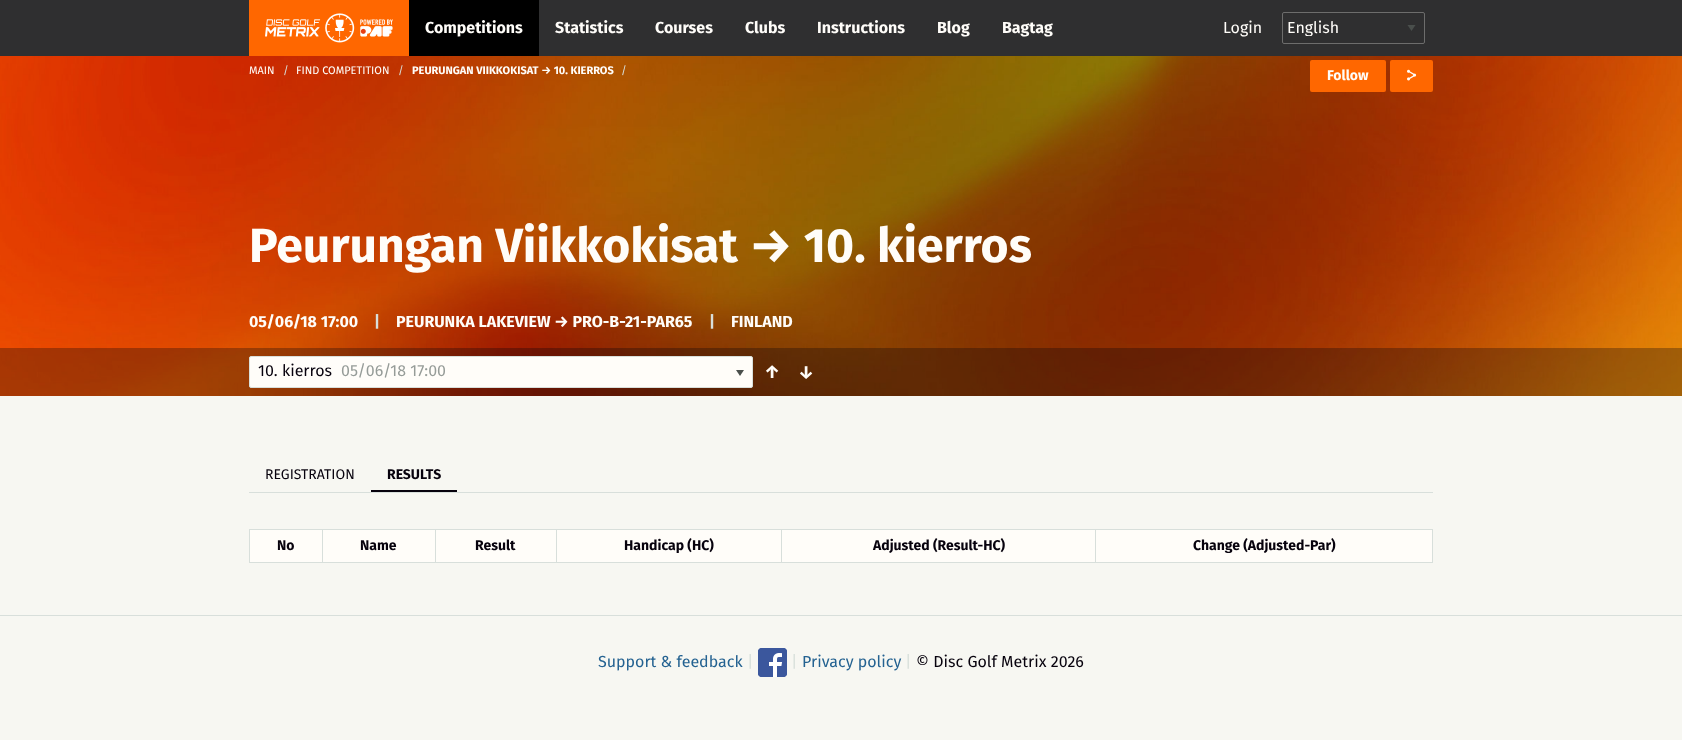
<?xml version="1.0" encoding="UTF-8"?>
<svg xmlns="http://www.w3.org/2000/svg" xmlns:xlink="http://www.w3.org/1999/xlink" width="1682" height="740">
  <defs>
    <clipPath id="clip1"><rect x="1287" y="20" width="113" height="16" /></clipPath>
  </defs>
  <rect width="100%" height="100%" fill="#f7f7f2" />
  <rect width="1682" height="56" fill="#2f2f30" />
  <rect x="249" width="160" height="56" fill="#ff6700" />
  <image x="265" y="13" width="128" height="30" xlink:href="image1.png" />
  <rect x="409" width="130" height="56" fill="#000000" />
  <path d="M 1407.5 25 h 8 l -4 6 z" fill="#4a4f4c" />
  <rect x="1282.5" y="12.5" width="142" height="31" rx="1.5" fill="none" stroke="#6d6d6c" />
  <image x="0" y="56" width="1682" height="340" xlink:href="image2.png" />
  <rect x="1310" y="60" width="76" height="32" rx="2" fill="#ff6700" />
  <rect x="1390" y="60" width="43" height="32" rx="2" fill="#ff6700" />
  <image x="1407" y="69" width="10" height="12" xlink:href="image3.png" />
  <rect y="348" width="1682" height="48" fill="#07020d" fill-opacity="0.3" />
  <rect x="249.5" y="356.5" width="503" height="31" rx="1.5" fill="#fffdf9" stroke="#d8dfdb" />
  <path d="M 736 370 h 8 l -4 6 z" fill="#4a4f4c" />
  <rect x="249" y="492" width="1184" height="1" fill="#d8dfdb" />
  <rect x="371" y="490" width="86" height="2" fill="#07020d" />
  <rect x="250" y="530" width="1182" height="32" fill="#fffdf9" />
  <rect x="1095" y="529" width="338" height="1" fill="#d8dfdb" />
  <rect x="1432" y="529" width="1" height="34" fill="#d8dfdb" />
  <rect x="1095" y="562" width="338" height="1" fill="#d8dfdb" />
  <rect x="1095" y="529" width="1" height="34" fill="#d8dfdb" />
  <rect x="781" y="529" width="315" height="1" fill="#d8dfdb" />
  <rect x="781" y="562" width="315" height="1" fill="#d8dfdb" />
  <rect x="781" y="529" width="1" height="34" fill="#d8dfdb" />
  <rect x="556" y="529" width="226" height="1" fill="#d8dfdb" />
  <rect x="556" y="562" width="226" height="1" fill="#d8dfdb" />
  <rect x="556" y="529" width="1" height="34" fill="#d8dfdb" />
  <rect x="435" y="529" width="122" height="1" fill="#d8dfdb" />
  <rect x="435" y="562" width="122" height="1" fill="#d8dfdb" />
  <rect x="435" y="529" width="1" height="34" fill="#d8dfdb" />
  <rect x="322" y="529" width="114" height="1" fill="#d8dfdb" />
  <rect x="322" y="562" width="114" height="1" fill="#d8dfdb" />
  <rect x="322" y="529" width="1" height="34" fill="#d8dfdb" />
  <rect x="249" y="529" width="74" height="1" fill="#d8dfdb" />
  <rect x="249" y="562" width="74" height="1" fill="#d8dfdb" />
  <rect x="249" y="529" width="1" height="34" fill="#d8dfdb" />
  <rect y="615" width="1682" height="1" fill="#d8dfdb" />
  <image x="758" y="648" width="29" height="29" xlink:href="image4.png" />
  <text x="425" y="33" style="font-family: Fira Sans; font-size: 16px; font-weight: bold; fill: #fffdf9">Competitions</text>
  <text x="555" y="33" style="font-family: Fira Sans; font-size: 16px; font-weight: bold; fill: #fffdf9">Statistics</text>
  <text x="655" y="33" style="font-family: Fira Sans; font-size: 16px; font-weight: bold; fill: #fffdf9">Courses</text>
  <text x="745" y="33" style="font-family: Fira Sans; font-size: 16px; font-weight: bold; fill: #fffdf9">Clubs</text>
  <text x="817" y="33" style="font-family: Fira Sans; font-size: 16px; font-weight: bold; fill: #fffdf9">Instructions</text>
  <text x="937" y="33" style="font-family: Fira Sans; font-size: 16px; font-weight: bold; fill: #fffdf9">Blog</text>
  <text x="1002" y="33" style="font-family: Fira Sans; font-size: 16px; font-weight: bold; fill: #fffdf9">Bagtag</text>
  <text x="1223" y="33" style="font-family: Fira Sans; font-size: 16px; fill: #fffdf9">Login</text>
  <g clip-path="url(#clip1)">
    <text x="1287" y="33" style="font-family: Fira Sans; font-size: 16px; fill: #fffdf9">English</text>
  </g>
  <text x="249" y="74" style="font-family: Fira Sans; font-size: 11px; fill: #fffdf9">MAIN</text>
  <text x="283" y="74" style="font-family: Fira Sans; font-size: 11px; fill: #d8dfdb">/</text>
  <text x="296" y="74" style="font-family: Fira Sans; font-size: 11px; fill: #fffdf9">FIND COMPETITION</text>
  <text x="398" y="74" style="font-family: Fira Sans; font-size: 11px; fill: #d8dfdb">/</text>
  <text x="412" y="74" style="font-family: Fira Sans; font-size: 11px; font-weight: bold; fill: #fffdf9">PEURUNGAN VIIKKOKISAT → 10. KIERROS</text>
  <text x="621" y="74" style="font-family: Fira Sans; font-size: 11px; fill: #d8dfdb">/</text>
  <text x="1327" y="80" style="font-family: Fira Sans; font-size: 14px; font-weight: bold; fill: #fffdf9">Follow</text>
  <text x="249" y="262" style="font-family: Fira Sans; font-size: 48px; font-weight: bold; fill: #fffdf9">Peurungan Viikkokisat → 10. kierros</text>
  <text x="249" y="327" style="font-family: Fira Sans; font-size: 16px; font-weight: bold; fill: #fffdf9">05/06/18 17:00</text>
  <text x="374" y="327" style="font-family: Fira Sans; font-size: 16px; font-weight: bold; fill: #d8dfdb">|</text>
  <text x="396" y="327" style="font-family: Fira Sans; font-size: 16px; font-weight: bold; fill: #fffdf9">PEURUNKA LAKEVIEW → PRO-B-21-PAR65</text>
  <text x="709" y="327" style="font-family: Fira Sans; font-size: 16px; font-weight: bold; fill: #d8dfdb">|</text>
  <text x="731" y="327" style="font-family: Fira Sans; font-size: 16px; font-weight: bold; fill: #fffdf9">FINLAND</text>
  <text x="258" y="376" style="font-family: Fira Sans; font-size: 16px; fill: #07020d">10. kierros</text>
  <text x="341" y="376" style="font-family: Fira Sans; font-size: 16px; fill: #969c98">05/06/18 17:00</text>
  <text x="764" y="378" style="font-family: Fira Sans; font-size: 18px; font-weight: bold; fill: #fffdf9">↑</text>
  <text x="798" y="378" style="font-family: Fira Sans; font-size: 18px; font-weight: bold; fill: #fffdf9">↓</text>
  <text x="265" y="479" style="font-family: Fira Sans; font-size: 14px; fill: #07020d">REGISTRATION</text>
  <text x="387" y="479" style="font-family: Fira Sans; font-size: 14px; font-weight: bold; fill: #07020d">RESULTS</text>
  <text x="277" y="550" style="font-family: Fira Sans; font-size: 14px; font-weight: bold; fill: #07020d">No</text>
  <text x="360" y="550" style="font-family: Fira Sans; font-size: 14px; font-weight: bold; fill: #07020d">Name</text>
  <text x="475" y="550" style="font-family: Fira Sans; font-size: 14px; font-weight: bold; fill: #07020d">Result</text>
  <text x="624" y="550" style="font-family: Fira Sans; font-size: 14px; font-weight: bold; fill: #07020d">Handicap (HC)</text>
  <text x="873" y="550" style="font-family: Fira Sans; font-size: 14px; font-weight: bold; fill: #07020d">Adjusted (Result-HC)</text>
  <text x="1193" y="550" style="font-family: Fira Sans; font-size: 14px; font-weight: bold; fill: #07020d">Change (Adjusted-Par)</text>
  <text x="598" y="667" style="font-family: Fira Sans; font-size: 16px; fill: #246291">Support &amp; feedback</text>
  <text x="747" y="667" style="font-family: Fira Sans; font-size: 16px; fill: #d8dfdb">|</text>
  <text x="791" y="667" style="font-family: Fira Sans; font-size: 16px; fill: #d8dfdb">|</text>
  <text x="802" y="667" style="font-family: Fira Sans; font-size: 16px; fill: #246291">Privacy policy</text>
  <text x="905" y="667" style="font-family: Fira Sans; font-size: 16px; fill: #d8dfdb">|</text>
  <text x="916" y="667" style="font-family: Fira Sans; font-size: 16px; fill: #07020d">© Disc Golf Metrix 2026</text>
</svg>
